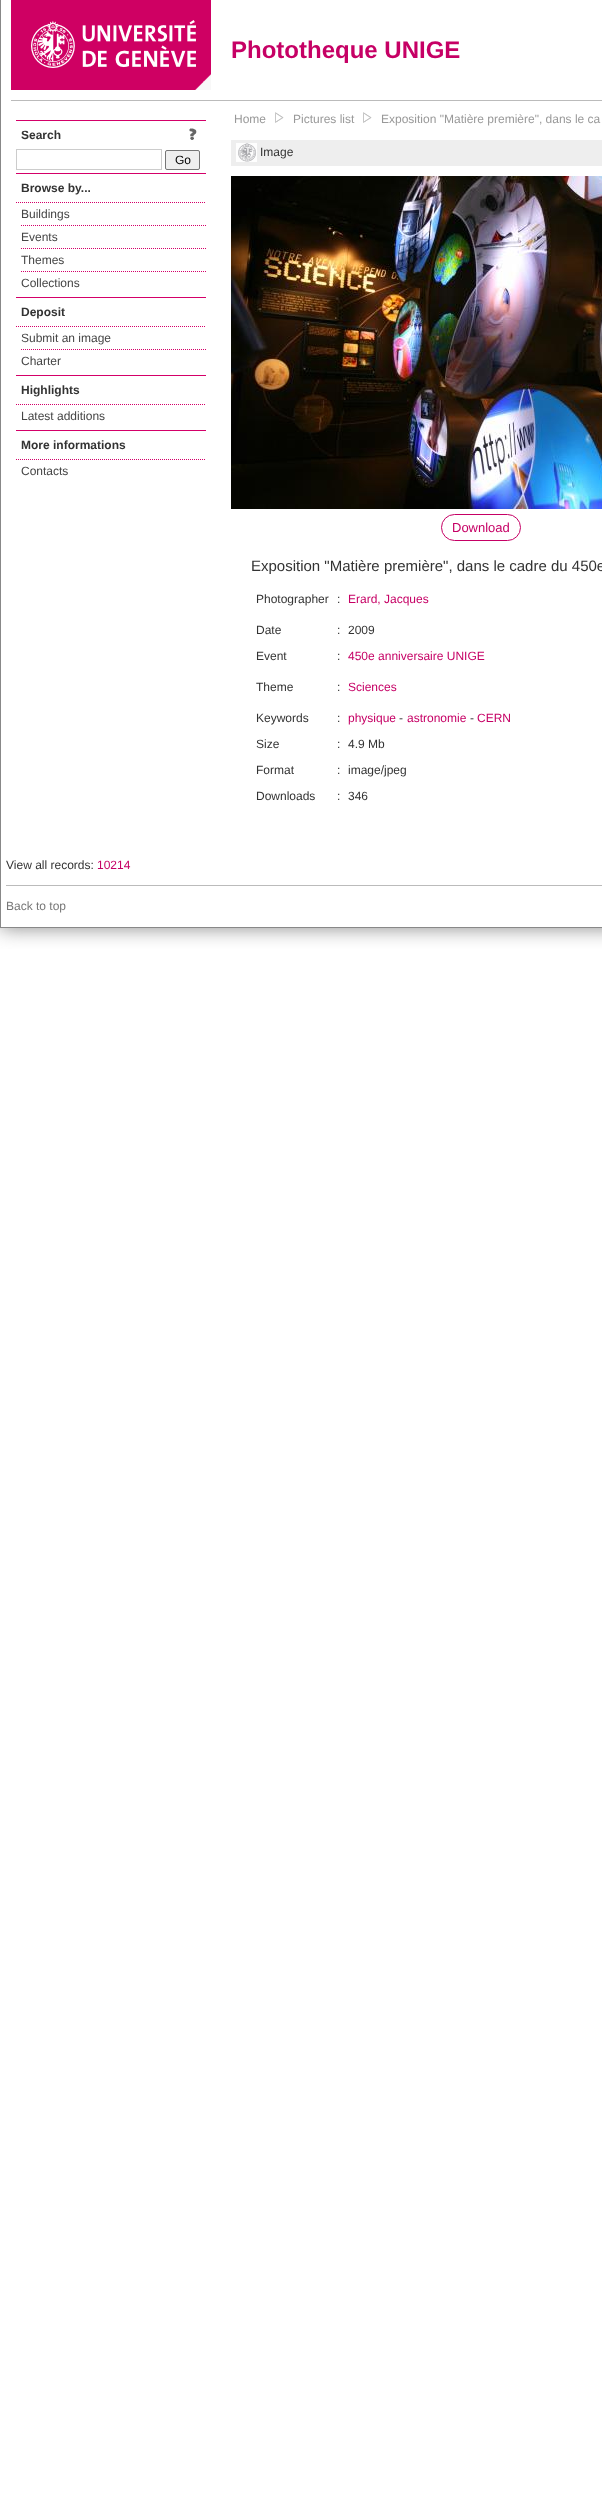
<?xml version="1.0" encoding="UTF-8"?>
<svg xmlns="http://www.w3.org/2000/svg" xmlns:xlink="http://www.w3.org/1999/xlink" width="602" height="2501">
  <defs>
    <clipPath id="clip1"><rect x="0" y="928" width="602" height="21" /></clipPath>
  </defs>
  <rect width="100%" height="100%" fill="#ffffff" />
  <g clip-path="url(#clip1)">
    <rect width="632" height="928" fill="#888888" filter="blur(10px)" />
  </g>
  <rect width="1" height="840" fill="#888888" />
  <rect x="11" width="200" height="90" fill="#cf0063" />
  <image x="195" y="74" width="16" height="16" xlink:href="image1.png" />
  <image x="31" y="20" width="165" height="48" xlink:href="image2.png" />
  <rect x="11" y="100" width="591" height="1" fill="#bbbbbb" />
  <rect x="16" y="120" width="190" height="1" fill="#d40069" />
  <image x="189" y="128" width="8" height="12" xlink:href="image3.png" />
  <rect x="16.5" y="149.5" width="145" height="20" fill="none" stroke="#cccccc" />
  <rect x="165.5" y="150.5" width="34" height="19" rx="1.5" fill="#efefef" stroke="#767676" />
  <rect x="16" y="173" width="190" height="1" fill="#d40069" />
  <path d="M 16 202.5 h 190" fill="none" stroke="#d40069" stroke-dasharray="1 1" />
  <path d="M 21 225.5 h 185" fill="none" stroke="#d40069" stroke-dasharray="1 1" />
  <path d="M 21 248.5 h 185" fill="none" stroke="#d40069" stroke-dasharray="1 1" />
  <path d="M 21 271.5 h 185" fill="none" stroke="#d40069" stroke-dasharray="1 1" />
  <rect x="16" y="297" width="190" height="1" fill="#d40069" />
  <path d="M 16 326.5 h 190" fill="none" stroke="#d40069" stroke-dasharray="1 1" />
  <path d="M 21 349.5 h 185" fill="none" stroke="#d40069" stroke-dasharray="1 1" />
  <rect x="16" y="375" width="190" height="1" fill="#d40069" />
  <path d="M 16 404.5 h 190" fill="none" stroke="#d40069" stroke-dasharray="1 1" />
  <rect x="16" y="430" width="190" height="1" fill="#d40069" />
  <path d="M 16 459.5 h 190" fill="none" stroke="#d40069" stroke-dasharray="1 1" />
  <image x="275" y="112" width="9" height="11" xlink:href="image4.png" />
  <image x="363" y="112" width="9" height="11" xlink:href="image4.png" />
  <rect x="231" y="140" width="371" height="26" fill="#eeeeee" />
  <image x="236" y="143" width="21" height="19" xlink:href="image5.png" />
  <image x="231" y="176" width="371" height="333" xlink:href="image6.png" />
  <rect x="441.5" y="514.5" width="79" height="26" rx="13" fill="none" stroke="#c60065" />
  <rect y="927" width="602" height="1" fill="#888888" />
  <rect y="840" width="1" height="88" fill="#888888" />
  <rect x="6" y="885" width="596" height="1" fill="#bbbbbb" />
  <text x="231" y="58" style="font-family: Liberation Sans; font-size: 24px; font-weight: bold; fill: #c60065">Phototheque UNIGE</text>
  <text x="21" y="139" style="font-family: Liberation Sans; font-size: 12px; font-weight: bold; fill: #333333">Search</text>
  <text x="175" y="164" style="font-family: Liberation Sans; font-size: 12px; fill: #000000">Go</text>
  <text x="21" y="192" style="font-family: Liberation Sans; font-size: 12px; font-weight: bold; fill: #333333">Browse by...</text>
  <text x="21" y="218" style="font-family: Liberation Sans; font-size: 12px; fill: #454545">Buildings</text>
  <text x="21" y="241" style="font-family: Liberation Sans; font-size: 12px; fill: #454545">Events</text>
  <text x="21" y="264" style="font-family: Liberation Sans; font-size: 12px; fill: #454545">Themes</text>
  <text x="21" y="287" style="font-family: Liberation Sans; font-size: 12px; fill: #454545">Collections</text>
  <text x="21" y="316" style="font-family: Liberation Sans; font-size: 12px; font-weight: bold; fill: #333333">Deposit</text>
  <text x="21" y="342" style="font-family: Liberation Sans; font-size: 12px; fill: #454545">Submit an image</text>
  <text x="21" y="365" style="font-family: Liberation Sans; font-size: 12px; fill: #454545">Charter</text>
  <text x="21" y="394" style="font-family: Liberation Sans; font-size: 12px; font-weight: bold; fill: #333333">Highlights</text>
  <text x="21" y="420" style="font-family: Liberation Sans; font-size: 12px; fill: #454545">Latest additions</text>
  <text x="21" y="449" style="font-family: Liberation Sans; font-size: 12px; font-weight: bold; fill: #333333">More informations</text>
  <text x="21" y="475" style="font-family: Liberation Sans; font-size: 12px; fill: #454545">Contacts</text>
  <text x="234" y="123" style="font-family: Liberation Sans; font-size: 12px; fill: #999999">Home</text>
  <text x="293" y="123" style="font-family: Liberation Sans; font-size: 12px; fill: #999999">Pictures list</text>
  <text x="381" y="123" style="font-family: Liberation Sans; font-size: 12px; fill: #999999">Exposition "Matière première", dans le ca</text>
  <text x="260" y="156" style="font-family: Liberation Sans; font-size: 12px; fill: #333333">Image</text>
  <text x="452" y="532" style="font-family: Liberation Sans; font-size: 13px; fill: #c60065">Download</text>
  <text x="251" y="571" style="font-family: Liberation Sans; font-size: 15px; fill: #333333">Exposition "Matière première", dans le cadre du 450e</text>
  <text x="256" y="603" style="font-family: Liberation Sans; font-size: 12px; fill: #333333">Photographer</text>
  <text x="337" y="603" style="font-family: Liberation Sans; font-size: 12px; fill: #333333">:</text>
  <text x="348" y="603" style="font-family: Liberation Sans; font-size: 12px; fill: #c60065">Erard, Jacques</text>
  <text x="256" y="634" style="font-family: Liberation Sans; font-size: 12px; fill: #333333">Date</text>
  <text x="337" y="634" style="font-family: Liberation Sans; font-size: 12px; fill: #333333">:</text>
  <text x="348" y="634" style="font-family: Liberation Sans; font-size: 12px; fill: #333333">2009</text>
  <text x="256" y="660" style="font-family: Liberation Sans; font-size: 12px; fill: #333333">Event</text>
  <text x="337" y="660" style="font-family: Liberation Sans; font-size: 12px; fill: #333333">:</text>
  <text x="348" y="660" style="font-family: Liberation Sans; font-size: 12px; fill: #c60065">450e anniversaire UNIGE</text>
  <text x="256" y="691" style="font-family: Liberation Sans; font-size: 12px; fill: #333333">Theme</text>
  <text x="337" y="691" style="font-family: Liberation Sans; font-size: 12px; fill: #333333">:</text>
  <text x="348" y="691" style="font-family: Liberation Sans; font-size: 12px; fill: #c60065">Sciences</text>
  <text x="256" y="722" style="font-family: Liberation Sans; font-size: 12px; fill: #333333">Keywords</text>
  <text x="337" y="722" style="font-family: Liberation Sans; font-size: 12px; fill: #333333">:</text>
  <text x="348" y="722" style="font-family: Liberation Sans; font-size: 12px; fill: #c60065">physique</text>
  <text x="399" y="722" style="font-family: Liberation Sans; font-size: 12px; fill: #333333">-</text>
  <text x="407" y="722" style="font-family: Liberation Sans; font-size: 12px; fill: #c60065">astronomie</text>
  <text x="470" y="722" style="font-family: Liberation Sans; font-size: 12px; fill: #333333">-</text>
  <text x="477" y="722" style="font-family: Liberation Sans; font-size: 12px; fill: #c60065">CERN</text>
  <text x="256" y="748" style="font-family: Liberation Sans; font-size: 12px; fill: #333333">Size</text>
  <text x="337" y="748" style="font-family: Liberation Sans; font-size: 12px; fill: #333333">:</text>
  <text x="348" y="748" style="font-family: Liberation Sans; font-size: 12px; fill: #333333">4.9 Mb</text>
  <text x="256" y="774" style="font-family: Liberation Sans; font-size: 12px; fill: #333333">Format</text>
  <text x="337" y="774" style="font-family: Liberation Sans; font-size: 12px; fill: #333333">:</text>
  <text x="348" y="774" style="font-family: Liberation Sans; font-size: 12px; fill: #333333">image/jpeg</text>
  <text x="256" y="800" style="font-family: Liberation Sans; font-size: 12px; fill: #333333">Downloads</text>
  <text x="337" y="800" style="font-family: Liberation Sans; font-size: 12px; fill: #333333">:</text>
  <text x="348" y="800" style="font-family: Liberation Sans; font-size: 12px; fill: #333333">346</text>
  <text x="6" y="869" style="font-family: Liberation Sans; font-size: 12px; fill: #333333">View all records:</text>
  <text x="97" y="869" style="font-family: Liberation Sans; font-size: 12px; fill: #c60065">10214</text>
  <text x="6" y="910" style="font-family: Liberation Sans; font-size: 12px; fill: #777777">Back to top</text>
</svg>
